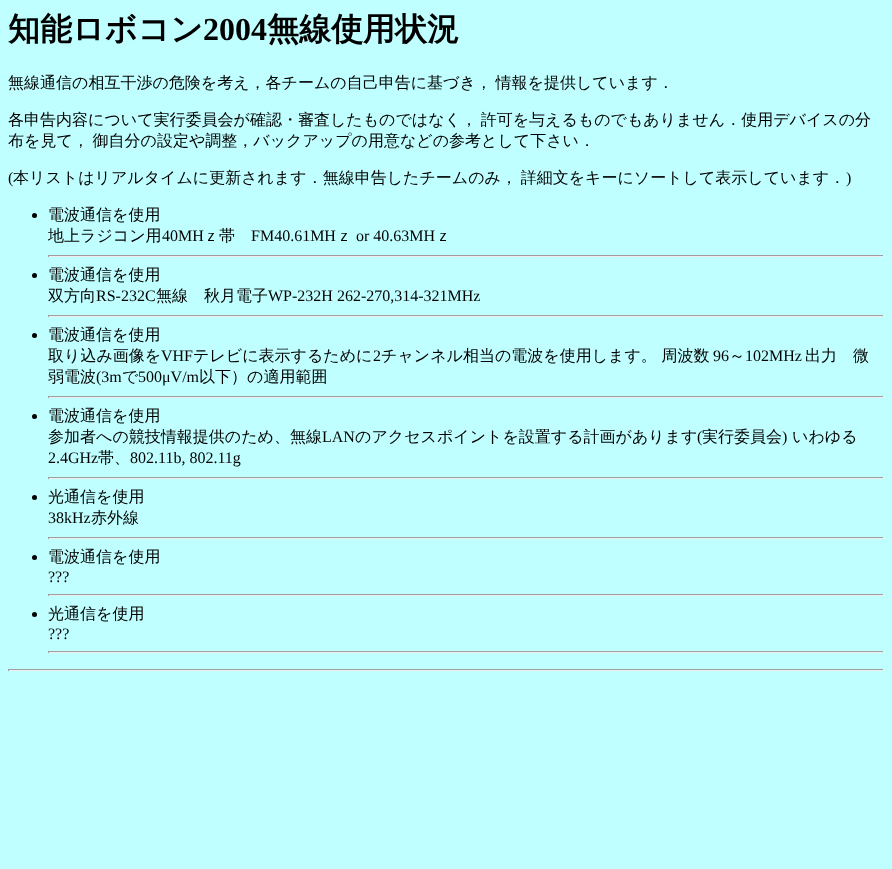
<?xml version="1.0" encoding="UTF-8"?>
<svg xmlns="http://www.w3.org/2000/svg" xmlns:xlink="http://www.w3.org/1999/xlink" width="892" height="869">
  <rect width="100%" height="100%" fill="#c0ffff" />
  <circle cx="34.5" cy="215.5" r="2.5" fill="#000000" />
  <rect x="48" y="255" width="836" height="1" fill="#9f9f9f" />
  <rect x="883" y="255" width="1" height="2" fill="#eeeeee" />
  <rect x="48" y="256" width="836" height="1" fill="#eeeeee" />
  <rect x="48" y="255" width="1" height="2" fill="#9f9f9f" />
  <circle cx="34.5" cy="275.5" r="2.5" fill="#000000" />
  <rect x="48" y="315" width="836" height="1" fill="#9f9f9f" />
  <rect x="883" y="315" width="1" height="2" fill="#eeeeee" />
  <rect x="48" y="316" width="836" height="1" fill="#eeeeee" />
  <rect x="48" y="315" width="1" height="2" fill="#9f9f9f" />
  <circle cx="34.5" cy="335.5" r="2.5" fill="#000000" />
  <rect x="48" y="396" width="836" height="1" fill="#9f9f9f" />
  <rect x="883" y="396" width="1" height="2" fill="#eeeeee" />
  <rect x="48" y="397" width="836" height="1" fill="#eeeeee" />
  <rect x="48" y="396" width="1" height="2" fill="#9f9f9f" />
  <circle cx="34.5" cy="416.5" r="2.5" fill="#000000" />
  <rect x="48" y="477" width="836" height="1" fill="#9f9f9f" />
  <rect x="883" y="477" width="1" height="2" fill="#eeeeee" />
  <rect x="48" y="478" width="836" height="1" fill="#eeeeee" />
  <rect x="48" y="477" width="1" height="2" fill="#9f9f9f" />
  <circle cx="34.5" cy="497.5" r="2.5" fill="#000000" />
  <rect x="48" y="537" width="836" height="1" fill="#9f9f9f" />
  <rect x="883" y="537" width="1" height="2" fill="#eeeeee" />
  <rect x="48" y="538" width="836" height="1" fill="#eeeeee" />
  <rect x="48" y="537" width="1" height="2" fill="#9f9f9f" />
  <circle cx="34.5" cy="557.5" r="2.5" fill="#000000" />
  <rect x="48" y="594" width="836" height="1" fill="#9f9f9f" />
  <rect x="883" y="594" width="1" height="2" fill="#eeeeee" />
  <rect x="48" y="595" width="836" height="1" fill="#eeeeee" />
  <rect x="48" y="594" width="1" height="2" fill="#9f9f9f" />
  <circle cx="34.5" cy="614.5" r="2.5" fill="#000000" />
  <rect x="48" y="651" width="836" height="1" fill="#9f9f9f" />
  <rect x="883" y="651" width="1" height="2" fill="#eeeeee" />
  <rect x="48" y="652" width="836" height="1" fill="#eeeeee" />
  <rect x="48" y="651" width="1" height="2" fill="#9f9f9f" />
  <rect x="8" y="669" width="876" height="1" fill="#9f9f9f" />
  <rect x="883" y="669" width="1" height="2" fill="#eeeeee" />
  <rect x="8" y="670" width="876" height="1" fill="#eeeeee" />
  <rect x="8" y="669" width="1" height="2" fill="#9f9f9f" />
  <text x="8" y="40" style="font-family: WenQuanYi Zen Hei; font-size: 32px; font-weight: bold; fill: #000000">知能ロボコン</text>
  <text x="203" y="40" style="font-family: Liberation Serif; font-size: 32px; font-weight: bold; fill: #000000">2004</text>
  <text x="267" y="40" style="font-family: WenQuanYi Zen Hei; font-size: 32px; font-weight: bold; fill: #000000">無線使用状況</text>
  <text x="8" y="88" word-spacing="-1" style="font-family: WenQuanYi Zen Hei; font-size: 16px; font-weight: 500; fill: #000000">無線通信の相互干渉の危険を考え，各チームの自己申告に基づき， 情報を提供しています．</text>
  <text x="8" y="125" word-spacing="-1" style="font-family: WenQuanYi Zen Hei; font-size: 16px; font-weight: 500; fill: #000000">各申告内容について実行委員会が確認・審査したものではなく， 許可を与えるものでもありません．使用デバイスの分</text>
  <text x="8" y="146" word-spacing="-1" style="font-family: WenQuanYi Zen Hei; font-size: 16px; font-weight: 500; fill: #000000">布を見て， 御自分の設定や調整，バックアップの用意などの参考として下さい．</text>
  <text x="8" y="183" style="font-family: Liberation Serif; font-size: 16px; fill: #000000">(</text>
  <text x="13" y="183" word-spacing="-1" style="font-family: WenQuanYi Zen Hei; font-size: 16px; font-weight: 500; fill: #000000">本リストはリアルタイムに更新されます．無線申告したチームのみ， 詳細文をキーにソートして表示しています．</text>
  <text x="846" y="183" style="font-family: Liberation Serif; font-size: 16px; fill: #000000">)</text>
  <text x="48" y="220" style="font-family: WenQuanYi Zen Hei; font-size: 16px; font-weight: 500; fill: #000000">電波通信を使用</text>
  <text x="48" y="241" style="font-family: WenQuanYi Zen Hei; font-size: 16px; font-weight: 500; fill: #000000">地上ラジコン用</text>
  <text x="162" y="241" style="font-family: Liberation Serif; font-size: 16px; fill: #000000">40MH</text>
  <text x="203" y="241" style="font-family: WenQuanYi Zen Hei; font-size: 16px; font-weight: 500; fill: #000000">ｚ帯</text>
  <text x="251" y="241" style="font-family: Liberation Serif; font-size: 16px; fill: #000000">FM40.61MH</text>
  <text x="336" y="241" style="font-family: WenQuanYi Zen Hei; font-size: 16px; font-weight: 500; fill: #000000">ｚ</text>
  <text x="356" y="241" style="font-family: Liberation Serif; font-size: 16px; fill: #000000">or 40.63MH</text>
  <text x="435" y="241" style="font-family: WenQuanYi Zen Hei; font-size: 16px; font-weight: 500; fill: #000000">ｚ</text>
  <text x="48" y="280" style="font-family: WenQuanYi Zen Hei; font-size: 16px; font-weight: 500; fill: #000000">電波通信を使用</text>
  <text x="48" y="301" style="font-family: WenQuanYi Zen Hei; font-size: 16px; font-weight: 500; fill: #000000">双方向</text>
  <text x="96" y="301" style="font-family: Liberation Serif; font-size: 16px; fill: #000000">RS-232C</text>
  <text x="156" y="301" style="font-family: WenQuanYi Zen Hei; font-size: 16px; font-weight: 500; fill: #000000">無線　秋月電子</text>
  <text x="268" y="301" style="font-family: Liberation Serif; font-size: 16px; fill: #000000">WP-232H 262-270,314-321MHz</text>
  <text x="48" y="340" style="font-family: WenQuanYi Zen Hei; font-size: 16px; font-weight: 500; fill: #000000">電波通信を使用</text>
  <text x="48" y="361" style="font-family: WenQuanYi Zen Hei; font-size: 16px; font-weight: 500; fill: #000000">取り込み画像を</text>
  <text x="161" y="361" style="font-family: Liberation Serif; font-size: 16px; fill: #000000">VHF</text>
  <text x="193" y="361" style="font-family: WenQuanYi Zen Hei; font-size: 16px; font-weight: 500; fill: #000000">テレビに表示するために</text>
  <text x="373" y="361" style="font-family: Liberation Serif; font-size: 16px; fill: #000000">2</text>
  <text x="381" y="361" style="font-family: WenQuanYi Zen Hei; font-size: 16px; font-weight: 500; fill: #000000">チャンネル相当の電波を使用します。 周波数</text>
  <text x="713" y="361" style="font-family: Liberation Serif; font-size: 16px; fill: #000000">96</text>
  <text x="729" y="361" style="font-family: WenQuanYi Zen Hei; font-size: 16px; font-weight: 500; fill: #000000">～</text>
  <text x="745" y="361" style="font-family: Liberation Serif; font-size: 16px; fill: #000000">102MHz</text>
  <text x="805" y="361" style="font-family: WenQuanYi Zen Hei; font-size: 16px; font-weight: 500; fill: #000000">出力　微</text>
  <text x="48" y="382" style="font-family: WenQuanYi Zen Hei; font-size: 16px; font-weight: 500; fill: #000000">弱電波</text>
  <text x="96" y="382" style="font-family: Liberation Serif; font-size: 16px; fill: #000000">(3m</text>
  <text x="122" y="382" style="font-family: WenQuanYi Zen Hei; font-size: 16px; font-weight: 500; fill: #000000">で</text>
  <text x="138" y="382" style="font-family: Liberation Serif; font-size: 16px; fill: #000000">500μV/m</text>
  <text x="199" y="382" style="font-family: WenQuanYi Zen Hei; font-size: 16px; font-weight: 500; fill: #000000">以下）の適用範囲</text>
  <text x="48" y="421" style="font-family: WenQuanYi Zen Hei; font-size: 16px; font-weight: 500; fill: #000000">電波通信を使用</text>
  <text x="48" y="442" style="font-family: WenQuanYi Zen Hei; font-size: 16px; font-weight: 500; fill: #000000">参加者への競技情報提供のため、無線</text>
  <text x="322" y="442" style="font-family: Liberation Serif; font-size: 16px; fill: #000000">LAN</text>
  <text x="355" y="442" style="font-family: WenQuanYi Zen Hei; font-size: 16px; font-weight: 500; fill: #000000">のアクセスポイントを設置する計画があります</text>
  <text x="697" y="442" style="font-family: Liberation Serif; font-size: 16px; fill: #000000">(</text>
  <text x="702" y="442" style="font-family: WenQuanYi Zen Hei; font-size: 16px; font-weight: 500; fill: #000000">実行委員会</text>
  <text x="782" y="442" style="font-family: Liberation Serif; font-size: 16px; fill: #000000">)</text>
  <text x="792" y="442" style="font-family: WenQuanYi Zen Hei; font-size: 16px; font-weight: 500; fill: #000000">いわゆる</text>
  <text x="48" y="463" style="font-family: Liberation Serif; font-size: 16px; fill: #000000">2.4GHz</text>
  <text x="98" y="463" style="font-family: WenQuanYi Zen Hei; font-size: 16px; font-weight: 500; fill: #000000">帯、</text>
  <text x="130" y="463" style="font-family: Liberation Serif; font-size: 16px; fill: #000000">802.11b, 802.11g</text>
  <text x="48" y="502" style="font-family: WenQuanYi Zen Hei; font-size: 16px; font-weight: 500; fill: #000000">光通信を使用</text>
  <text x="48" y="523" style="font-family: Liberation Serif; font-size: 16px; fill: #000000">38kHz</text>
  <text x="91" y="523" style="font-family: WenQuanYi Zen Hei; font-size: 16px; font-weight: 500; fill: #000000">赤外線</text>
  <text x="48" y="562" style="font-family: WenQuanYi Zen Hei; font-size: 16px; font-weight: 500; fill: #000000">電波通信を使用</text>
  <text x="48" y="582" style="font-family: Liberation Serif; font-size: 16px; fill: #000000">???</text>
  <text x="48" y="619" style="font-family: WenQuanYi Zen Hei; font-size: 16px; font-weight: 500; fill: #000000">光通信を使用</text>
  <text x="48" y="639" style="font-family: Liberation Serif; font-size: 16px; fill: #000000">???</text>
</svg>
